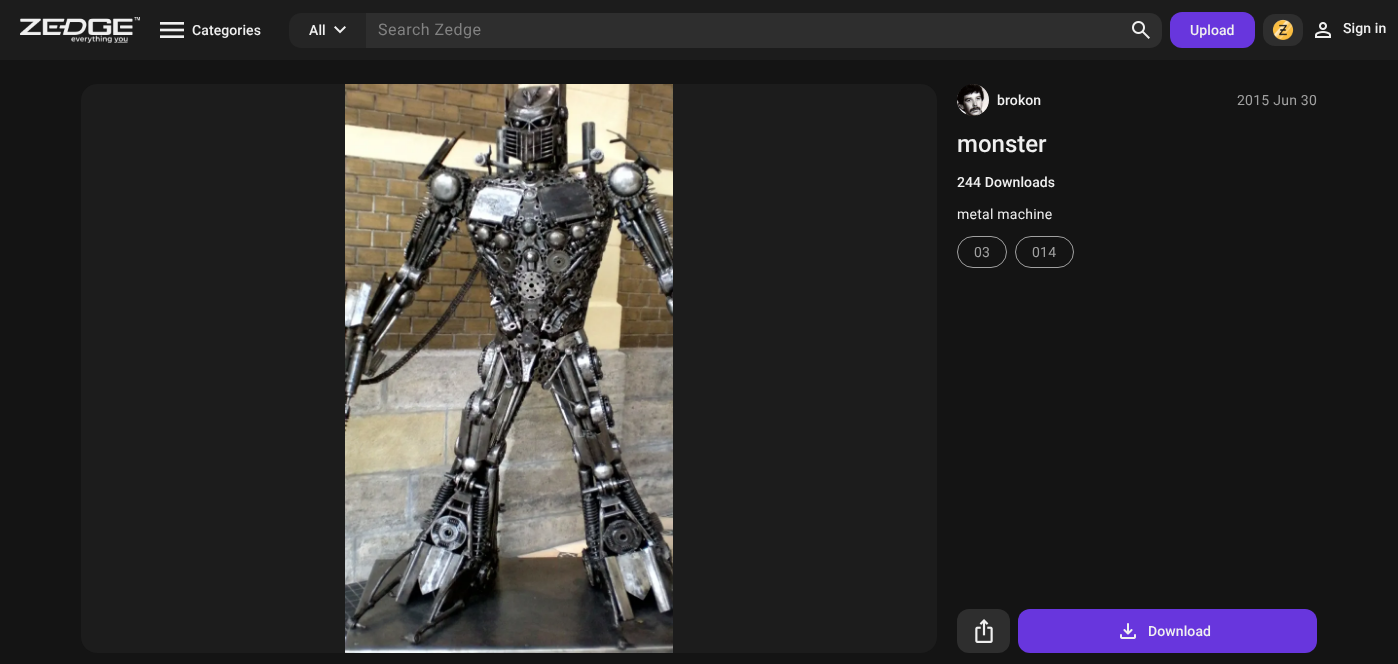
<?xml version="1.0" encoding="UTF-8"?>
<svg xmlns="http://www.w3.org/2000/svg" xmlns:xlink="http://www.w3.org/1999/xlink" width="1398" height="664">
  <rect width="100%" height="100%" fill="#141414" />
  <rect width="1398" height="60" fill="#1c1c1c" />
  <image x="20" y="17" width="120" height="18" xlink:href="image1.png" />
  <image x="71" y="35" width="57" height="8" xlink:href="image2.png" />
  <image x="160" y="22" width="24" height="16" xlink:href="image3.png" />
  <path d="M 301 13 h 65 v 35 h -65 c -6.5 0 -12 -5.5 -12 -12 v -11 c 0 -6.5 5.5 -12 12 -12 z" fill="#252525" />
  <image x="334" y="26" width="12" height="8" xlink:href="image4.png" />
  <path d="M 366 13 h 784 c 6.5 0 12 5.5 12 12 v 11 c 0 6.5 -5.5 12 -12 12 h -784 z" fill="#2e2e2e" />
  <image x="1132" y="21" width="18" height="18" xlink:href="image5.png" />
  <rect x="1170" y="12" width="85" height="36" rx="12" fill="#6836dd" />
  <rect x="1263" y="14" width="40" height="32" rx="12" fill="#2e2e2e" />
  <image x="1272" y="19" width="22" height="21" xlink:href="image6.png" />
  <image x="1315" y="22" width="16" height="16" xlink:href="image7.png" />
  <rect x="81" y="84" width="856" height="569" rx="16" fill="#1c1c1c" />
  <image x="345" y="84" width="328" height="569" xlink:href="image8.png" />
  <image x="957" y="84" width="32" height="32" xlink:href="image9.png" />
  <rect x="957.5" y="236.5" width="49" height="31" rx="15.5" fill="none" stroke="#a1a1a1" />
  <rect x="1015.5" y="236.5" width="58" height="31" rx="15.5" fill="none" stroke="#a1a1a1" />
  <rect x="957" y="609" width="53" height="44" rx="12" fill="#2e2e2e" />
  <image x="975" y="619" width="18" height="24" xlink:href="image10.png" />
  <rect x="1018" y="609" width="299" height="44" rx="12" fill="#6836dd" />
  <image x="1120" y="623" width="16" height="16" xlink:href="image11.png" />
  <text x="192" y="35" style="font-family: Roboto; font-size: 14px; font-weight: 500; letter-spacing: 0.1px; fill: #f0f0f0">Categories</text>
  <text x="309" y="35" style="font-family: Roboto; font-size: 14px; font-weight: 500; letter-spacing: 0.1px; fill: #f0f0f0">All</text>
  <text x="378" y="35" style="font-family: Roboto; font-size: 16px; letter-spacing: 0.5px; fill: #828282">Search Zedge</text>
  <text x="1190" y="35" style="font-family: Roboto; font-size: 14px; font-weight: 500; letter-spacing: 0.1px; fill: #f0f0f0">Upload</text>
  <text x="1343" y="33" style="font-family: Roboto; font-size: 14px; font-weight: 500; letter-spacing: 0.1px; fill: #f0f0f0">Sign in</text>
  <text x="997" y="105" style="font-family: Roboto; font-size: 14px; font-weight: 500; letter-spacing: 0.1px; fill: #f0f0f0">brokon</text>
  <text x="1237" y="105" style="font-family: Roboto; font-size: 14px; letter-spacing: 0.25px; fill: #a1a1a1">2015 Jun 30</text>
  <text x="957" y="152" style="font-family: Roboto; font-size: 24px; font-weight: 500; fill: #f0f0f0">monster</text>
  <text x="957" y="187" style="font-family: Roboto; font-size: 14px; font-weight: 500; letter-spacing: 0.1px; fill: #f0f0f0">244 Downloads</text>
  <text x="957" y="219" style="font-family: Roboto; font-size: 14px; letter-spacing: 0.25px; fill: #f0f0f0">metal machine</text>
  <text x="974" y="257" style="font-family: Roboto; font-size: 14px; letter-spacing: 0.25px; fill: #a1a1a1">03</text>
  <text x="1032" y="257" style="font-family: Roboto; font-size: 14px; letter-spacing: 0.25px; fill: #a1a1a1">014</text>
  <text x="1148" y="636" style="font-family: Roboto; font-size: 14px; font-weight: 500; letter-spacing: 0.1px; fill: #f0f0f0">Download</text>
</svg>
